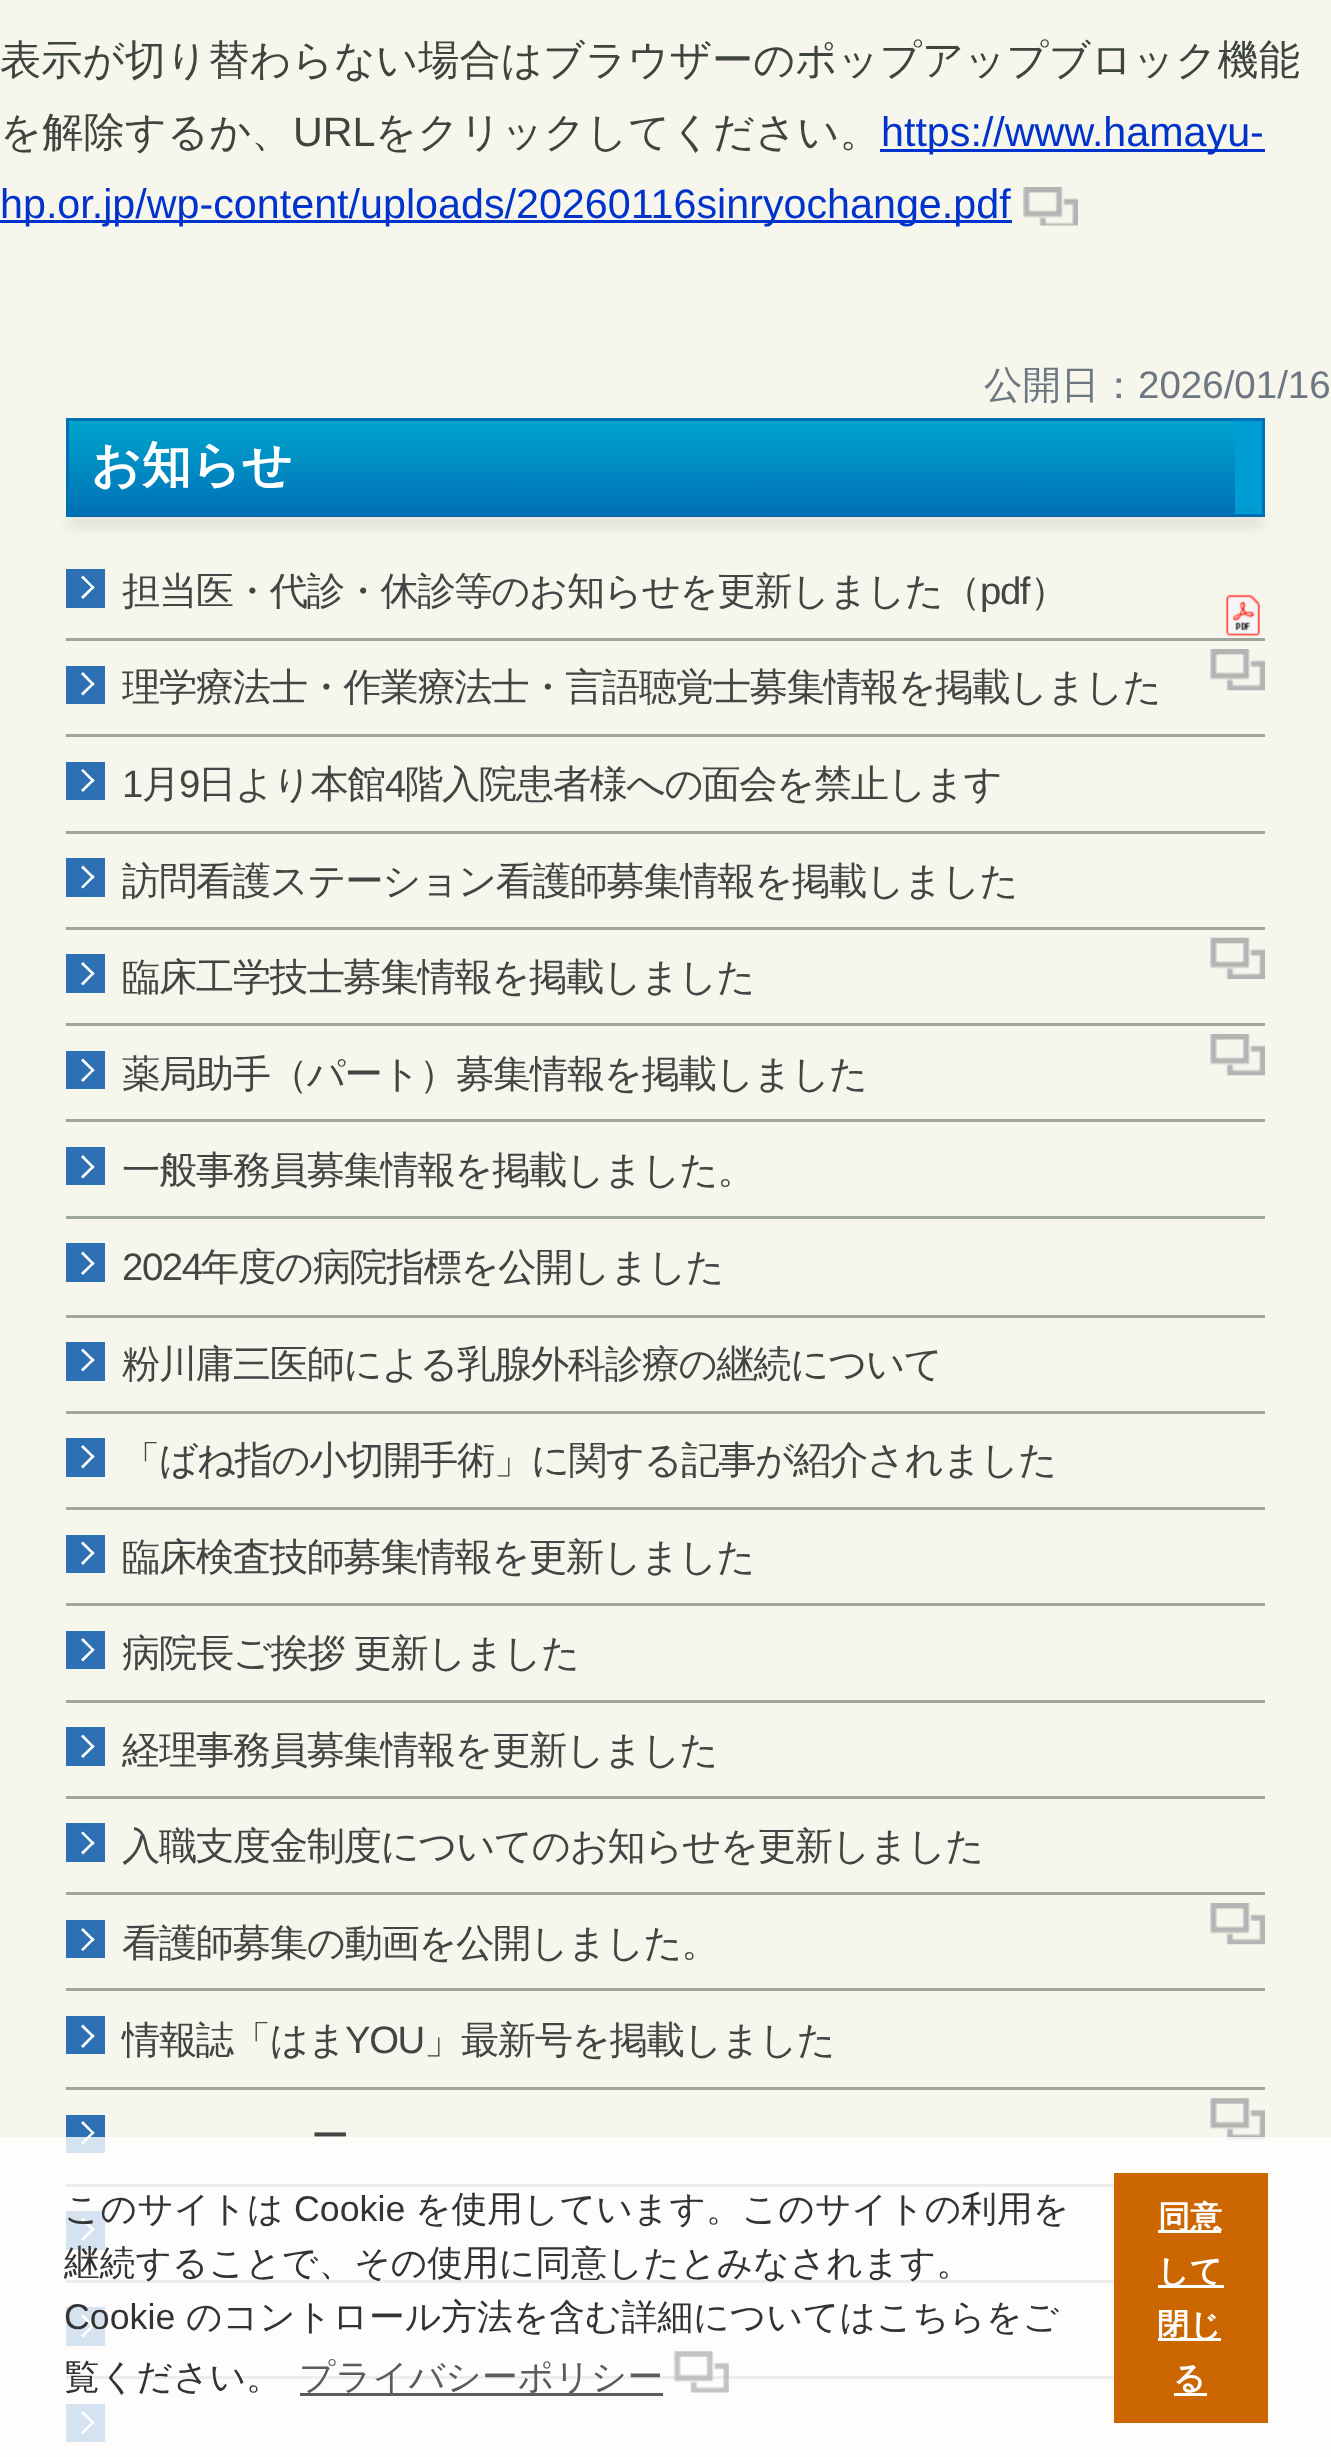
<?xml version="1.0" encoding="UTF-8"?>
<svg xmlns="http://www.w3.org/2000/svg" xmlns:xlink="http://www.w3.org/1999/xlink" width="1331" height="2457">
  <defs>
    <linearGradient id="g1" gradientUnits="userSpaceOnUse" x1="666" y1="421" x2="666" y2="514"><stop offset="0" stop-color="#00a4cd" /><stop offset="1" stop-color="#0071b6" /></linearGradient>
    <clipPath id="clip1"><path d="M 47 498 h 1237 v 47 h -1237 z m 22 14 h 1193 v 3 h -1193 z" clip-rule="evenodd" /></clipPath>
  </defs>
  <rect width="100%" height="100%" fill="#f7f6ed" />
  <rect x="880" y="149" width="385" height="3" fill="#0033cc" />
  <rect y="220" width="1012" height="3" fill="#0033cc" />
  <image x="1023" y="187" width="55" height="39" xlink:href="image1.png" />
  <rect x="69" y="421" width="1166" height="93" fill="url(#g1)" />
  <rect x="67.5" y="419.5" width="1196" height="96" fill="none" stroke="#0071b6" stroke-width="3" />
  <rect x="1235" y="421" width="27" height="93" fill="#009dd4" />
  <g clip-path="url(#clip1)">
    <rect x="69" y="520" width="1193" height="3" fill="#000000" fill-opacity="0.4" filter="blur(7px)" />
  </g>
  <rect x="66" y="638" width="1199" height="3" fill="#9ea69e" />
  <image x="1226" y="594" width="34" height="42" xlink:href="image2.png" />
  <rect x="66" y="569" width="39" height="39" fill="#2d70b3" />
  <path d="M 83 575.5 l 11.5 12 l -1.5 1.5 l -12 -11.5 z" fill="#ffffff" />
  <path d="M 93 585.5 l 1.5 2 l -11.5 11.5 l -2 -2 z" fill="#ffffff" />
  <rect x="66" y="734" width="1199" height="3" fill="#9ea69e" />
  <image x="1210" y="649" width="55" height="42" xlink:href="image3.png" />
  <rect x="66" y="666" width="39" height="38" fill="#2d70b3" />
  <path d="M 83 672 l 11.5 12 l -1.5 2 l -12 -12 z" fill="#ffffff" />
  <path d="M 93 682 l 1.5 2 l -11.5 11.5 l -2 -2 z" fill="#ffffff" />
  <rect x="66" y="831" width="1199" height="3" fill="#9ea69e" />
  <rect x="66" y="762" width="39" height="38" fill="#2d70b3" />
  <path d="M 83 769 l 11.5 11.5 l -1.5 2 l -12 -12 z" fill="#ffffff" />
  <path d="M 93 778.5 l 1.5 2 l -11.5 11.5 l -2 -2 z" fill="#ffffff" />
  <rect x="66" y="927" width="1199" height="3" fill="#9ea69e" />
  <rect x="66" y="858" width="39" height="39" fill="#2d70b3" />
  <path d="M 83 865.5 l 11.5 11.5 l -1.5 2 l -12 -11.5 z" fill="#ffffff" />
  <path d="M 93 875 l 1.5 2 l -11.5 11.5 l -2 -1.5 z" fill="#ffffff" />
  <rect x="66" y="1023" width="1199" height="3" fill="#9ea69e" />
  <image x="1210" y="937" width="55" height="42" xlink:href="image4.png" />
  <rect x="66" y="954" width="39" height="39" fill="#2d70b3" />
  <path d="M 83 962 l 11.5 11.5 l -1.5 2 l -12 -11.5 z" fill="#ffffff" />
  <path d="M 93 971.5 l 1.5 2 l -11.5 12 l -2 -2 z" fill="#ffffff" />
  <rect x="66" y="1119" width="1199" height="3" fill="#9ea69e" />
  <image x="1210" y="1034" width="55" height="42" xlink:href="image3.png" />
  <rect x="66" y="1051" width="39" height="38" fill="#2d70b3" />
  <path d="M 83 1058.5 l 11.5 11.5 l -1.5 2 l -12 -11.5 z" fill="#ffffff" />
  <path d="M 93 1068.5 l 1.5 1.5 l -11.5 12 l -2 -2 z" fill="#ffffff" />
  <rect x="66" y="1216" width="1199" height="3" fill="#9ea69e" />
  <rect x="66" y="1147" width="39" height="38" fill="#2d70b3" />
  <path d="M 83 1155 l 11.5 12 l -1.5 2 l -12 -12 z" fill="#ffffff" />
  <path d="M 93 1165 l 1.5 2 l -11.5 11.5 l -2 -2 z" fill="#ffffff" />
  <rect x="66" y="1315" width="1199" height="3" fill="#9ea69e" />
  <rect x="66" y="1243" width="39" height="39" fill="#2d70b3" />
  <path d="M 83 1251.5 l 11.5 12 l -1.5 2 l -12 -12 z" fill="#ffffff" />
  <path d="M 93 1261.5 l 1.5 2 l -11.5 11.5 l -2 -2 z" fill="#ffffff" />
  <rect x="66" y="1411" width="1199" height="3" fill="#9ea69e" />
  <rect x="66" y="1342" width="39" height="39" fill="#2d70b3" />
  <path d="M 83 1348.5 l 11.5 11.5 l -1.5 2 l -12 -11.5 z" fill="#ffffff" />
  <path d="M 93 1358 l 1.5 2 l -11.5 11.5 l -2 -2 z" fill="#ffffff" />
  <rect x="66" y="1507" width="1199" height="3" fill="#9ea69e" />
  <rect x="66" y="1438" width="39" height="39" fill="#2d70b3" />
  <path d="M 83 1445 l 11.5 11.5 l -1.5 2 l -12 -11.5 z" fill="#ffffff" />
  <path d="M 93 1454.5 l 1.5 2 l -11.5 12 l -2 -2 z" fill="#ffffff" />
  <rect x="66" y="1603" width="1199" height="3" fill="#9ea69e" />
  <rect x="66" y="1535" width="39" height="38" fill="#2d70b3" />
  <path d="M 83 1541.5 l 11.5 11.5 l -1.5 2 l -12 -11.5 z" fill="#ffffff" />
  <path d="M 93 1551 l 1.5 2 l -11.5 12 l -2 -2 z" fill="#ffffff" />
  <rect x="66" y="1700" width="1199" height="3" fill="#9ea69e" />
  <rect x="66" y="1631" width="39" height="38" fill="#2d70b3" />
  <path d="M 83 1638 l 11.5 12 l -1.5 1.5 l -12 -11.5 z" fill="#ffffff" />
  <path d="M 93 1648 l 1.5 2 l -11.5 11.5 l -2 -2 z" fill="#ffffff" />
  <rect x="66" y="1796" width="1199" height="3" fill="#9ea69e" />
  <rect x="66" y="1727" width="39" height="39" fill="#2d70b3" />
  <path d="M 83 1734.5 l 11.5 12 l -1.5 2 l -12 -12 z" fill="#ffffff" />
  <path d="M 93 1744.5 l 1.5 2 l -11.5 11.5 l -2 -2 z" fill="#ffffff" />
  <rect x="66" y="1892" width="1199" height="3" fill="#9ea69e" />
  <rect x="66" y="1823" width="39" height="39" fill="#2d70b3" />
  <path d="M 83 1831.5 l 11.5 11.5 l -1.5 2 l -12 -12 z" fill="#ffffff" />
  <path d="M 93 1841 l 1.5 2 l -11.5 11.5 l -2 -2 z" fill="#ffffff" />
  <rect x="66" y="1988" width="1199" height="3" fill="#9ea69e" />
  <image x="1210" y="1903" width="55" height="42" xlink:href="image3.png" />
  <rect x="66" y="1920" width="39" height="38" fill="#2d70b3" />
  <path d="M 83 1928 l 11.5 11.5 l -1.5 2 l -12 -11.5 z" fill="#ffffff" />
  <path d="M 93 1937.5 l 1.5 2 l -11.5 11.5 l -2 -1.5 z" fill="#ffffff" />
  <rect x="66" y="2087" width="1199" height="3" fill="#9ea69e" />
  <rect x="66" y="2016" width="39" height="38" fill="#2d70b3" />
  <path d="M 83 2024.5 l 11.5 11.5 l -1.5 2 l -12 -11.5 z" fill="#ffffff" />
  <path d="M 93 2034 l 1.5 2 l -11.5 12 l -2 -2 z" fill="#ffffff" />
  <rect x="66" y="2184" width="1048" height="3" fill="#9ea69e" />
  <image x="1210" y="2098" width="55" height="42" xlink:href="image5.png" />
  <rect x="66" y="2115" width="39" height="38" fill="#2d70b3" />
  <path d="M 83 2121 l 11.5 12 l -1.5 1.5 l -12 -11.5 z" fill="#ffffff" />
  <path d="M 93 2131 l 1.5 2 l -11.5 11.5 l -2 -2 z" fill="#ffffff" />
  <rect x="66" y="2280" width="1048" height="3" fill="#9ea69e" />
  <rect x="66" y="2211" width="39" height="39" fill="#2d70b3" />
  <path d="M 83 2217.5 l 11.5 12 l -1.5 2 l -12 -12 z" fill="#ffffff" />
  <path d="M 93 2227.5 l 1.5 2 l -11.5 11.5 l -2 -2 z" fill="#ffffff" />
  <rect x="66" y="2376" width="1048" height="3" fill="#9ea69e" />
  <rect x="66" y="2307" width="39" height="39" fill="#2d70b3" />
  <path d="M 83 2314.5 l 11.5 11.5 l -1.5 2 l -12 -12 z" fill="#ffffff" />
  <path d="M 93 2324 l 1.5 2 l -11.5 11.5 l -2 -2 z" fill="#ffffff" />
  <rect x="66" y="2404" width="39" height="38" fill="#2d70b3" />
  <path d="M 83 2411 l 11.5 11.5 l -1.5 2 l -12 -11.5 z" fill="#ffffff" />
  <path d="M 93 2420.5 l 1.5 2 l -11.5 11.5 l -2 -1.5 z" fill="#ffffff" />
  <rect y="2137" width="1331" height="320" fill="#ffffff" fill-opacity="0.8" />
  <image x="673" y="2351" width="56" height="42" xlink:href="image6.png" />
  <rect x="300" y="2393" width="363" height="3" fill="#5b5b5b" />
  <rect x="1114" y="2173" width="154" height="250" fill="#cc6600" />
  <rect x="1158" y="2230" width="63" height="3" fill="#ffffff" />
  <rect x="1158" y="2285" width="66" height="3" fill="#ffffff" />
  <rect x="1158" y="2338" width="63" height="3" fill="#ffffff" />
  <rect x="1174" y="2393" width="33" height="3" fill="#ffffff" />
  <text x="0" y="74" style="font-family: WenQuanYi Zen Hei; font-size: 41.25px; font-weight: 500; fill: #3e453e">表示が切り替わらない場合はブラウザーのポップアップブロック機能</text>
  <text x="0" y="146" style="font-family: WenQuanYi Zen Hei; font-size: 41.25px; font-weight: 500; fill: #3e453e">を解除するか、</text>
  <text x="293" y="146" style="font-family: Liberation Sans; font-size: 41.25px; fill: #3e453e">URL</text>
  <text x="375" y="146" style="font-family: WenQuanYi Zen Hei; font-size: 41.25px; font-weight: 500; fill: #3e453e">をクリックしてください。</text>
  <text x="881" y="146" style="font-family: Liberation Sans; font-size: 41.25px; fill: #0033cc">https://www.hamayu-</text>
  <text x="0" y="218" style="font-family: Liberation Sans; font-size: 41.25px; fill: #0033cc">hp.or.jp/wp-content/uploads/20260116sinryochange.pdf</text>
  <text x="984" y="398" style="font-family: WenQuanYi Zen Hei; font-size: 38.5px; font-weight: 500; fill: #6c7781">公開日：</text>
  <text x="1138" y="398" style="font-family: Liberation Sans; font-size: 38.5px; fill: #6c7781">2026/01/16</text>
  <text x="91" y="482" style="font-family: WenQuanYi Zen Hei; font-size: 49.5px; font-weight: bold; fill: #ffffff">お知らせ</text>
  <text x="122" y="604" style="font-family: WenQuanYi Zen Hei; font-size: 38.35px; font-weight: 500; letter-spacing: -1.4px; fill: #444444">担当医・代診・休診等のお知らせを更新しました（</text>
  <text x="980" y="604" style="font-family: Liberation Sans; font-size: 38.35px; letter-spacing: -1.4px; fill: #444444">pdf</text>
  <text x="1030" y="604" style="font-family: WenQuanYi Zen Hei; font-size: 38.35px; font-weight: 500; letter-spacing: -1.4px; fill: #444444">）</text>
  <text x="122" y="700" style="font-family: WenQuanYi Zen Hei; font-size: 38.35px; font-weight: 500; letter-spacing: -1.4px; fill: #444444">理学療法士・作業療法士・言語聴覚士募集情報を掲載しました</text>
  <text x="142" y="797" style="font-family: WenQuanYi Zen Hei; font-size: 38.35px; font-weight: 500; letter-spacing: -1.4px; fill: #444444">月</text>
  <text x="198" y="797" style="font-family: WenQuanYi Zen Hei; font-size: 38.35px; font-weight: 500; letter-spacing: -1.4px; fill: #444444">日より本館</text>
  <text x="405" y="797" style="font-family: WenQuanYi Zen Hei; font-size: 38.35px; font-weight: 500; letter-spacing: -1.4px; fill: #444444">階入院患者様への面会を禁止します</text>
  <text x="122" y="797" style="font-family: Liberation Sans; font-size: 38.35px; letter-spacing: -1.4px; fill: #444444">1</text>
  <text x="179" y="797" style="font-family: Liberation Sans; font-size: 38.35px; letter-spacing: -1.4px; fill: #444444">9</text>
  <text x="385" y="797" style="font-family: Liberation Sans; font-size: 38.35px; letter-spacing: -1.4px; fill: #444444">4</text>
  <text x="122" y="894" style="font-family: WenQuanYi Zen Hei; font-size: 38.35px; font-weight: 500; letter-spacing: -1.4px; fill: #444444">訪問看護ステーション看護師募集情報を掲載しました</text>
  <text x="122" y="990" style="font-family: WenQuanYi Zen Hei; font-size: 38.35px; font-weight: 500; letter-spacing: -1.4px; fill: #444444">臨床工学技士募集情報を掲載しました</text>
  <text x="122" y="1087" style="font-family: WenQuanYi Zen Hei; font-size: 38.35px; font-weight: 500; letter-spacing: -1.4px; fill: #444444">薬局助手（パート）募集情報を掲載しました</text>
  <text x="122" y="1183" style="font-family: WenQuanYi Zen Hei; font-size: 38.35px; font-weight: 500; letter-spacing: -1.4px; fill: #444444">一般事務員募集情報を掲載しました。</text>
  <text x="122" y="1280" style="font-family: Liberation Sans; font-size: 38.35px; letter-spacing: -1.4px; fill: #444444">2024</text>
  <text x="201" y="1280" style="font-family: WenQuanYi Zen Hei; font-size: 38.35px; font-weight: 500; letter-spacing: -1.4px; fill: #444444">年度の病院指標を公開しました</text>
  <text x="122" y="1377" style="font-family: WenQuanYi Zen Hei; font-size: 38.35px; font-weight: 500; letter-spacing: -1.4px; fill: #444444">粉川庸三医師による乳腺外科診療の継続について</text>
  <text x="122" y="1473" style="font-family: WenQuanYi Zen Hei; font-size: 38.35px; font-weight: 500; letter-spacing: -1.4px; fill: #444444">「ばね指の小切開手術」に関する記事が紹介されました</text>
  <text x="122" y="1570" style="font-family: WenQuanYi Zen Hei; font-size: 38.35px; font-weight: 500; letter-spacing: -1.4px; fill: #444444">臨床検査技師募集情報を更新しました</text>
  <text x="122" y="1666" word-spacing="-1" style="font-family: WenQuanYi Zen Hei; font-size: 38.35px; font-weight: 500; letter-spacing: -1.4px; fill: #444444">病院長ご挨拶 更新しました</text>
  <text x="122" y="1763" style="font-family: WenQuanYi Zen Hei; font-size: 38.35px; font-weight: 500; letter-spacing: -1.4px; fill: #444444">経理事務員募集情報を更新しました</text>
  <text x="122" y="1859" style="font-family: WenQuanYi Zen Hei; font-size: 38.35px; font-weight: 500; letter-spacing: -1.4px; fill: #444444">入職支度金制度についてのお知らせを更新しました</text>
  <text x="122" y="1956" style="font-family: WenQuanYi Zen Hei; font-size: 38.35px; font-weight: 500; letter-spacing: -1.4px; fill: #444444">看護師募集の動画を公開しました。</text>
  <text x="122" y="2053" style="font-family: WenQuanYi Zen Hei; font-size: 38.35px; font-weight: 500; letter-spacing: -1.4px; fill: #444444">情報誌「はま</text>
  <text x="424" y="2053" style="font-family: WenQuanYi Zen Hei; font-size: 38.35px; font-weight: 500; letter-spacing: -1.4px; fill: #444444">」最新号を掲載しました</text>
  <text x="345" y="2053" style="font-family: Liberation Sans; font-size: 38.35px; letter-spacing: -1.4px; fill: #444444">YOU</text>
  <text x="311" y="2149" style="font-family: WenQuanYi Zen Hei; font-size: 38.35px; font-weight: 500; letter-spacing: -1.4px; fill: #444444">ー</text>
  <text x="64" y="2221" style="font-family: WenQuanYi Zen Hei; font-size: 35.75px; font-weight: 500; fill: #333333">このサイトは</text>
  <text x="294" y="2221" style="font-family: Liberation Sans; font-size: 35.75px; fill: #333333">Cookie</text>
  <text x="415" y="2221" style="font-family: WenQuanYi Zen Hei; font-size: 35.75px; font-weight: 500; fill: #333333">を使用しています。このサイトの利用を</text>
  <text x="64" y="2275" style="font-family: WenQuanYi Zen Hei; font-size: 35.75px; font-weight: 500; fill: #333333">継続することで、その使用に同意したとみなされます。</text>
  <text x="64" y="2329" style="font-family: Liberation Sans; font-size: 35.75px; fill: #333333">Cookie</text>
  <text x="186" y="2329" style="font-family: WenQuanYi Zen Hei; font-size: 35.75px; font-weight: 500; fill: #333333">のコントロール方法を含む詳細についてはこちらをご</text>
  <text x="64" y="2389" style="font-family: WenQuanYi Zen Hei; font-size: 35.75px; font-weight: 500; fill: #333333">覧ください。</text>
  <text x="299" y="2389" style="font-family: WenQuanYi Zen Hei; font-size: 35.75px; font-weight: 500; fill: #5b5b5b">プライバシーポリシー</text>
  <text x="1158" y="2228" style="font-family: WenQuanYi Zen Hei; font-size: 32px; font-weight: bold; fill: #ffffff">同意</text>
  <text x="1157" y="2282" style="font-family: WenQuanYi Zen Hei; font-size: 32px; font-weight: bold; fill: #ffffff">して</text>
  <text x="1157" y="2336" style="font-family: WenQuanYi Zen Hei; font-size: 32px; font-weight: bold; fill: #ffffff">閉じ</text>
  <text x="1173" y="2389" style="font-family: WenQuanYi Zen Hei; font-size: 32px; font-weight: bold; fill: #ffffff">る</text>
</svg>
